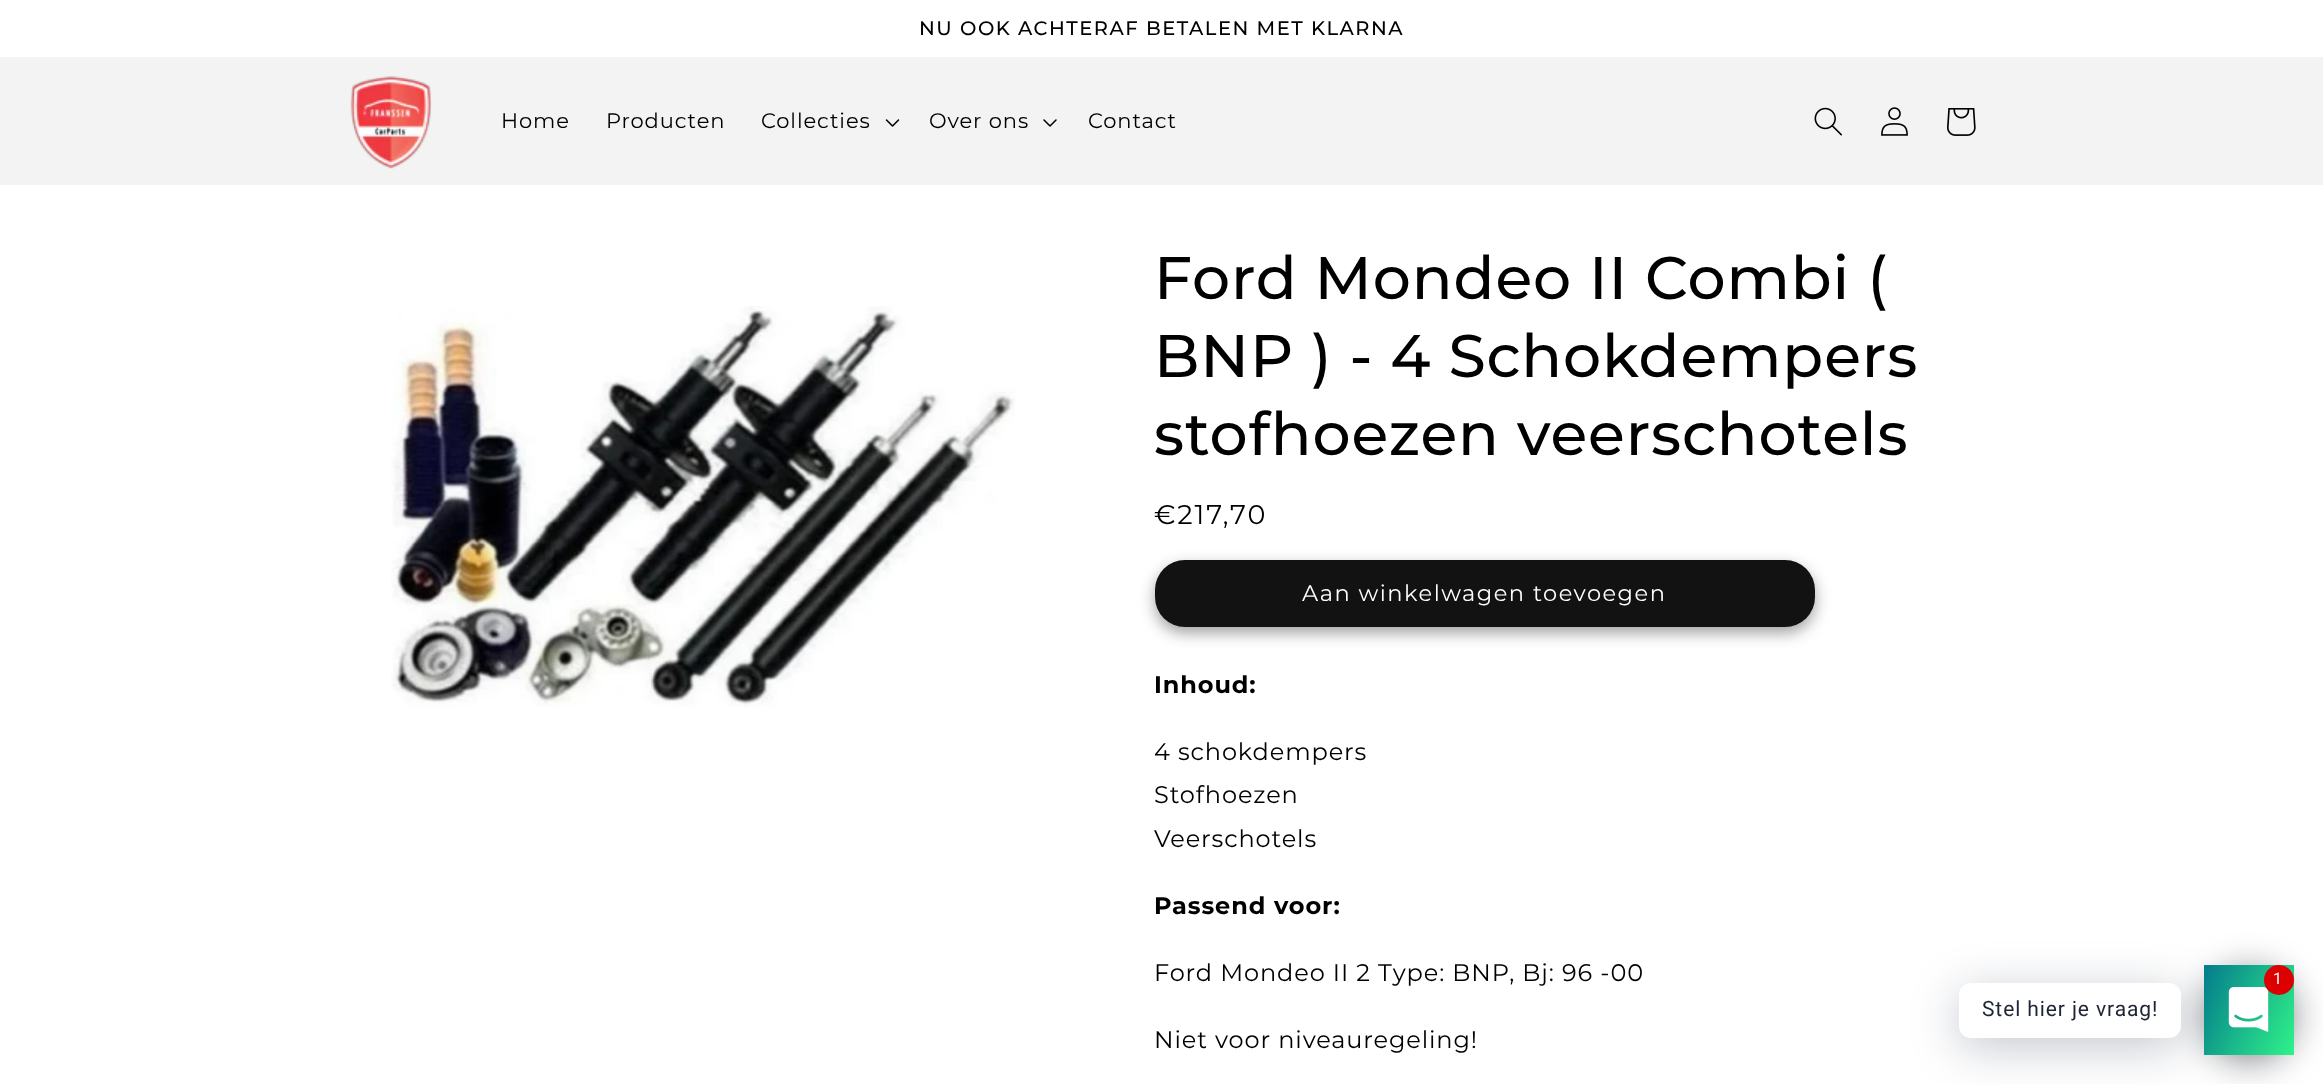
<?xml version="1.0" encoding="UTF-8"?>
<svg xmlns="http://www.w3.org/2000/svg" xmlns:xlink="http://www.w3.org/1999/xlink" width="2323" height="1084">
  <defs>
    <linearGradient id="g1" gradientUnits="userSpaceOnUse" x1="2194" y1="984" x2="2303" y2="1035"><stop offset="0" stop-color="#047c8d" /><stop offset="1" stop-color="#2ff289" /></linearGradient>
  </defs>
  <rect width="100%" height="100%" fill="#ffffff" />
  <rect y="57" width="2323" height="128" fill="#f3f3f3" />
  <image x="350" y="76" width="82" height="93" xlink:href="image1.png" />
  <image x="885" y="119" width="15" height="8" xlink:href="image2.png" />
  <image x="1043" y="119" width="14" height="8" xlink:href="image3.png" />
  <image x="1814" y="107" width="28" height="29" xlink:href="image4.png" />
  <image x="1881" y="107" width="27" height="29" xlink:href="image5.png" />
  <image x="1947" y="108" width="29" height="28" xlink:href="image6.png" />
  <image x="391" y="306" width="624" height="401" xlink:href="image7.png" />
  <rect x="1155" y="566" width="660" height="67" rx="30" fill="#121212" fill-opacity="0.4" filter="blur(7.5px)" />
  <rect x="1155" y="560" width="660" height="67" rx="30" fill="#121212" />
  <rect x="2204" y="971" width="90" height="90" rx="45" fill="#020610" fill-opacity="0.5" filter="blur(18px)" />
  <rect x="2204" y="965" width="90" height="90" fill="url(#g1)" />
  <rect x="1959" y="992" width="222" height="55" rx="12" fill="#00122e" fill-opacity="0.24" filter="blur(24px)" />
  <image x="2228" y="987" width="41" height="45" xlink:href="image8.png" />
  <circle cx="2279" cy="980" r="15" fill="#dd0000" />
  <rect x="1959" y="983" width="222" height="55" rx="12" fill="#ffffff" />
  <text x="919" y="35" style="font-family: Montserrat; font-size: 19.5px; font-weight: 500; letter-spacing: 1.5px; fill: #000000">NU OOK ACHTERAF BETALEN MET KLARNA</text>
  <text x="501" y="128" style="font-family: Montserrat; font-size: 21px; letter-spacing: 0.9px; fill: #000000">Home</text>
  <text x="606" y="128" style="font-family: Montserrat; font-size: 21px; letter-spacing: 0.9px; fill: #000000">Producten</text>
  <text x="761" y="128" style="font-family: Montserrat; font-size: 21px; letter-spacing: 0.9px; fill: #000000">Collecties</text>
  <text x="929" y="128" style="font-family: Montserrat; font-size: 21px; letter-spacing: 0.9px; fill: #000000">Over ons</text>
  <text x="1088" y="128" style="font-family: Montserrat; font-size: 21px; letter-spacing: 0.9px; fill: #000000">Contact</text>
  <text x="1154" y="299" style="font-family: Montserrat; font-size: 60px; font-weight: 500; letter-spacing: 0.9px; fill: #000000">Ford Mondeo II Combi (</text>
  <text x="1154" y="377" style="font-family: Montserrat; font-size: 60px; font-weight: 500; letter-spacing: 0.9px; fill: #000000">BNP ) - 4 Schokdempers</text>
  <text x="1154" y="455" style="font-family: Montserrat; font-size: 60px; font-weight: 500; letter-spacing: 0.9px; fill: #000000">stofhoezen veerschotels</text>
  <text x="1154" y="524" style="font-family: Montserrat; font-size: 27px; letter-spacing: 2px; fill: #000000">€217,70</text>
  <text x="1302" y="601" style="font-family: Montserrat; font-size: 22.5px; letter-spacing: 1.5px; fill: #ffffff">Aan winkelwagen toevoegen</text>
  <text x="1154" y="693" style="font-family: Montserrat; font-size: 24px; font-weight: bold; letter-spacing: 0.9px; fill: #000000">Inhoud:</text>
  <text x="1154" y="760" style="font-family: Montserrat; font-size: 24px; letter-spacing: 0.9px; fill: #000000">4 schokdempers</text>
  <text x="1154" y="803" style="font-family: Montserrat; font-size: 24px; letter-spacing: 0.9px; fill: #000000">Stofhoezen</text>
  <text x="1154" y="847" style="font-family: Montserrat; font-size: 24px; letter-spacing: 0.9px; fill: #000000">Veerschotels</text>
  <text x="1154" y="914" style="font-family: Montserrat; font-size: 24px; font-weight: bold; letter-spacing: 0.9px; fill: #000000">Passend voor:</text>
  <text x="1154" y="981" style="font-family: Montserrat; font-size: 24px; letter-spacing: 0.9px; fill: #000000">Ford Mondeo II 2 Type: BNP, Bj: 96 -00</text>
  <text x="1154" y="1048" style="font-family: Montserrat; font-size: 24px; letter-spacing: 0.9px; fill: #000000">Niet voor niveauregeling!</text>
  <text x="2273" y="984" style="font-family: Roboto; font-size: 16px; letter-spacing: 0.9px; fill: #ffffff">1</text>
  <text x="1982" y="1016" style="font-family: Roboto; font-size: 21px; letter-spacing: 0.9px; fill: #1e2433">Stel hier je vraag!</text>
</svg>
